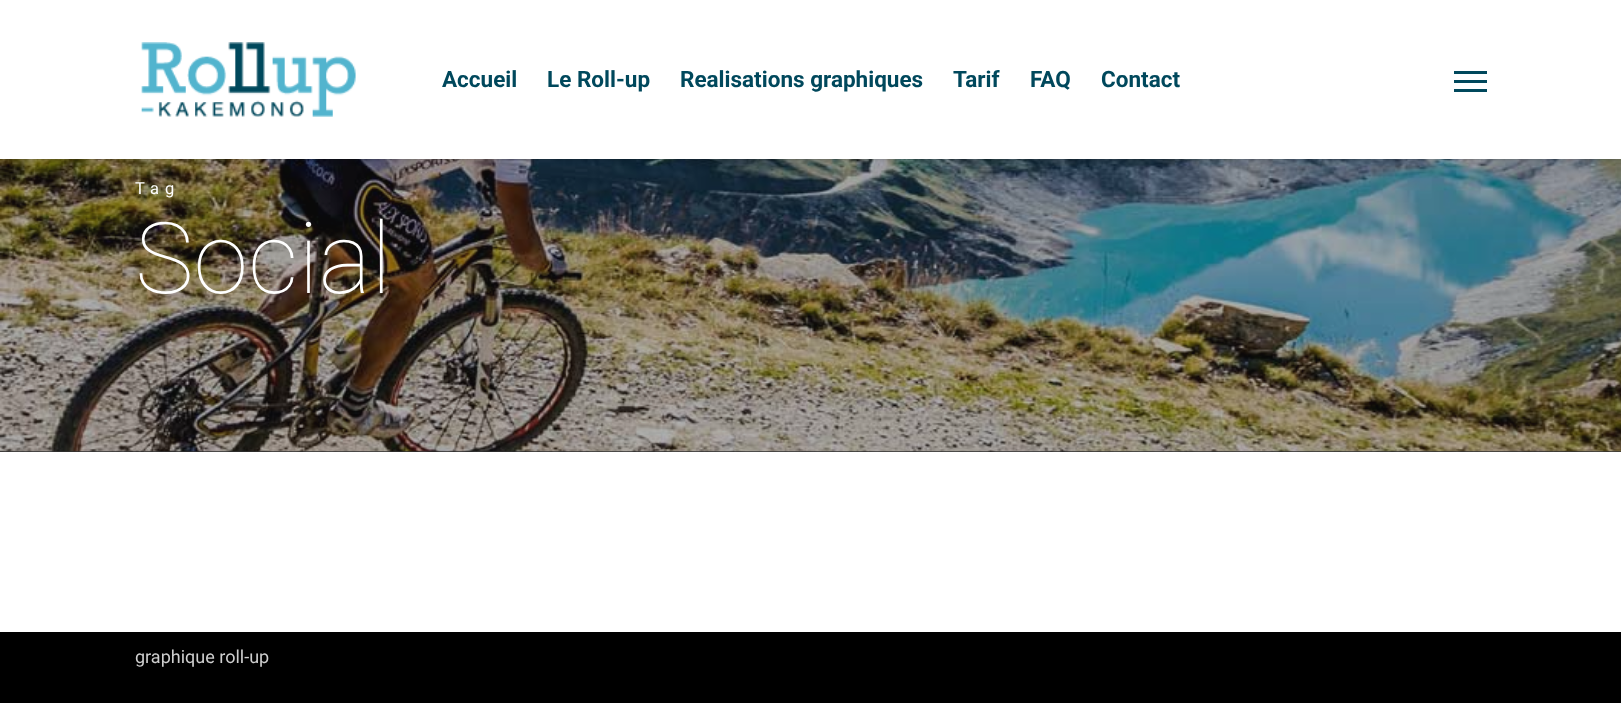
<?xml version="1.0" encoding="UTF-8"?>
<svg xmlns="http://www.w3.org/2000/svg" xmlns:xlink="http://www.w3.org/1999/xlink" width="1621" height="703">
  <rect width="100%" height="100%" fill="#303030" />
  <image x="0" y="159" width="1621" height="293" xlink:href="image2.png" />
  <rect width="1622" height="159" fill="#000000" fill-opacity="0.22" filter="blur(2px)" />
  <rect width="1621" height="159" fill="#ffffff" />
  <image x="141" y="42" width="215" height="75" xlink:href="image1.png" />
  <rect x="1454" y="71" width="33" height="3" fill="#00485c" />
  <rect x="1454" y="89" width="33" height="3" fill="#00485c" />
  <rect x="1454" y="80" width="33" height="3" fill="#00485c" />
  <rect y="452" width="1621" height="180" fill="#ffffff" />
  <rect y="632" width="1621" height="71" fill="#000000" />
  <text x="442" y="87" style="font-family: Roboto; font-size: 22.5px; font-weight: bold; fill: #00485c">Accueil</text>
  <text x="547" y="87" style="font-family: Roboto; font-size: 22.5px; font-weight: bold; fill: #00485c">Le Roll-up</text>
  <text x="680" y="87" style="font-family: Roboto; font-size: 22.5px; font-weight: bold; fill: #00485c">Realisations graphiques</text>
  <text x="953" y="87" style="font-family: Roboto; font-size: 22.5px; font-weight: bold; fill: #00485c">Tarif</text>
  <text x="1030" y="87" style="font-family: Roboto; font-size: 22.5px; font-weight: bold; fill: #00485c">FAQ</text>
  <text x="1101" y="87" style="font-family: Roboto; font-size: 22.5px; font-weight: bold; fill: #00485c">Contact</text>
  <text x="135" y="194" style="font-family: Roboto; font-size: 16.5px; letter-spacing: 6px; fill: #ffffff">Tag</text>
  <text x="135" y="293" style="font-family: Roboto; font-size: 99px; font-weight: 100; fill: #ffffff">Social</text>
  <text x="135" y="663" style="font-family: Roboto; font-size: 18px; fill: #cecece">graphique roll-up</text>
</svg>
